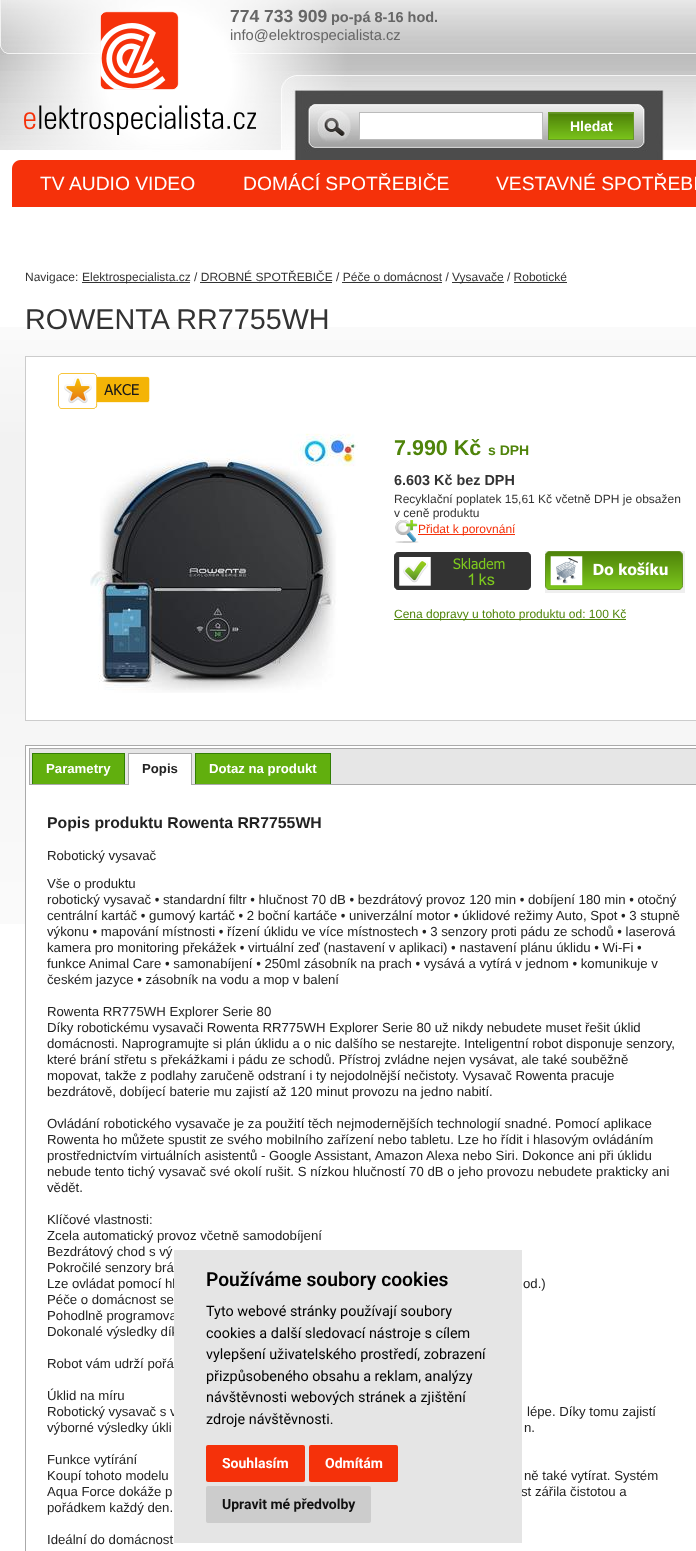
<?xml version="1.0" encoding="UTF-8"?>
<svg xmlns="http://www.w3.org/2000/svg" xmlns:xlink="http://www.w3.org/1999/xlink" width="696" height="1551">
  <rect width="100%" height="100%" fill="#ffffff" />
  <image x="0" y="0" width="696" height="160" xlink:href="image1.png" />
  <image x="100" y="11" width="79" height="79" xlink:href="image2.png" />
  <image x="24" y="105" width="232" height="30" xlink:href="image3.png" />
  <rect x="359.5" y="112.5" width="183" height="27" fill="#ffffff" stroke="#bbbbbb" />
  <rect x="549" y="138" width="84" height="1" fill="#7ac31b" />
  <image x="549" y="113" width="84" height="25" xlink:href="image4.png" />
  <rect x="548.5" y="112.5" width="85" height="27" fill="none" stroke="#679826" />
  <image x="12" y="160" width="684" height="47" xlink:href="image5.png" />
  <image x="0" y="327" width="11" height="597" xlink:href="image6.png" />
  <image x="11" y="327" width="685" height="597" xlink:href="image7.png" />
  <rect x="82" y="282" width="108" height="1" fill="#333333" />
  <rect x="452" y="282" width="52" height="1" fill="#333333" />
  <rect x="200" y="282" width="132" height="1" fill="#333333" />
  <rect x="342" y="282" width="100" height="1" fill="#333333" />
  <rect x="514" y="282" width="53" height="1" fill="#333333" />
  <rect x="25.5" y="356.5" width="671" height="364" fill="#ffffff" stroke="#cccccc" />
  <image x="58" y="373" width="92" height="36" xlink:href="image8.png" />
  <image x="90" y="433" width="268" height="260" xlink:href="image9.png" />
  <image x="395" y="520" width="24" height="23" xlink:href="image10.png" />
  <rect x="418" y="534" width="97" height="1" fill="#f5310a" />
  <image x="394" y="552" width="137" height="38" xlink:href="image11.png" />
  <rect x="545" y="551" width="140" height="42" fill="#efefef" />
  <image x="545" y="551" width="138" height="39" xlink:href="image12.png" />
  <rect x="394" y="619" width="232" height="1" fill="#4f840a" />
  <rect x="26" y="746" width="670" height="178" fill="#ffffff" />
  <rect x="25.5" y="745.5" width="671" height="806" fill="none" stroke="#aaaaaa" />
  <rect x="29.5" y="748.5" width="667" height="36" fill="#e6e6e6" stroke="#aaaaaa" />
  <rect x="33" y="754" width="91" height="30" fill="#61af0e" />
  <rect x="32" y="753" width="93" height="1" fill="#327e04" />
  <rect x="124" y="753" width="1" height="31" fill="#327e04" />
  <rect x="32" y="753" width="1" height="31" fill="#327e04" />
  <rect x="129" y="754" width="62" height="31" fill="#ffffff" />
  <rect x="128" y="753" width="64" height="1" fill="#aaaaaa" />
  <rect x="191" y="753" width="1" height="32" fill="#aaaaaa" />
  <rect x="128" y="753" width="1" height="32" fill="#aaaaaa" />
  <rect x="196" y="754" width="134" height="30" fill="#61af0e" />
  <rect x="195" y="753" width="136" height="1" fill="#327e04" />
  <rect x="330" y="753" width="1" height="31" fill="#327e04" />
  <rect x="195" y="753" width="1" height="31" fill="#327e04" />
  <text x="230" y="22" style="font-family: Liberation Sans; font-size: 17.5px; font-weight: bold; fill: #666666">774 733 909</text>
  <text x="331" y="22" style="font-family: Liberation Sans; font-size: 14.5px; font-weight: bold; fill: #666666">po-pá 8-16 hod.</text>
  <text x="230" y="40" style="font-family: Liberation Sans; font-size: 14.75px; fill: #666666">info@elektrospecialista.cz</text>
  <text x="570" y="131" style="font-family: Liberation Sans; font-size: 14px; font-weight: bold; fill: #ffffff">Hledat</text>
  <text x="40" y="190" style="font-family: Liberation Sans; font-size: 19.25px; fill: #ffffff">TV AUDIO VIDEO</text>
  <text x="243" y="190" style="font-family: Liberation Sans; font-size: 19.25px; fill: #ffffff">DOMÁCÍ SPOTŘEBIČE</text>
  <text x="496" y="190" style="font-family: Liberation Sans; font-size: 19.25px; fill: #ffffff">VESTAVNÉ SPOTŘEBI</text>
  <text x="25" y="281" style="font-family: Liberation Sans; font-size: 12px; fill: #333333">Navigace:</text>
  <text x="82" y="281" style="font-family: Liberation Sans; font-size: 12px; fill: #333333">Elektrospecialista.cz / DROBNÉ SPOTŘEBIČE / Péče o domácnost /</text>
  <text x="452" y="281" style="font-family: Liberation Sans; font-size: 12px; fill: #333333">Vysavače / Robotické</text>
  <text x="25" y="329" style="font-family: Liberation Sans; font-size: 28.75px; fill: #333333">ROWENTA RR7755WH</text>
  <text x="394" y="455" style="font-family: Liberation Sans; font-size: 21.5px; font-weight: bold; fill: #4f840a">7.990 Kč</text>
  <text x="488" y="455" style="font-family: Liberation Sans; font-size: 14px; font-weight: bold; fill: #4f840a">s DPH</text>
  <text x="394" y="485" style="font-family: Liberation Sans; font-size: 14.4px; font-weight: bold; fill: #333333">6.603 Kč bez DPH</text>
  <text x="394" y="503" style="font-family: Liberation Sans; font-size: 12px; fill: #333333">Recyklační poplatek 15,61 Kč včetně DPH je obsažen</text>
  <text x="394" y="517" style="font-family: Liberation Sans; font-size: 12px; fill: #333333">v ceně produktu</text>
  <text x="418" y="533" style="font-family: Liberation Sans; font-size: 12px; fill: #f5310a">Přidat k porovnání</text>
  <text x="394" y="618" style="font-family: Liberation Sans; font-size: 12px; fill: #4f840a">Cena dopravy u tohoto produktu od: 100 Kč</text>
  <text x="46" y="773" style="font-family: Liberation Sans; font-size: 13.2px; font-weight: bold; fill: #ffffff">Parametry</text>
  <text x="142" y="773" style="font-family: Liberation Sans; font-size: 13.2px; font-weight: bold; fill: #222222">Popis</text>
  <text x="209" y="773" style="font-family: Liberation Sans; font-size: 13.2px; font-weight: bold; fill: #ffffff">Dotaz na produkt</text>
  <text x="47" y="828" style="font-family: Liberation Sans; font-size: 15.8px; font-weight: bold; fill: #222222">Popis produktu Rowenta RR7755WH</text>
  <text x="47" y="860" style="font-family: Liberation Sans; font-size: 13.2px; fill: #222222">Robotický vysavač</text>
  <text x="47" y="888" style="font-family: Liberation Sans; font-size: 13.2px; fill: #222222">Vše o produktu</text>
  <text x="47" y="904" style="font-family: Liberation Sans; font-size: 13.2px; fill: #222222">robotický vysavač • standardní filtr • hlučnost 70 dB • bezdrátový provoz 120 min • dobíjení 180 min • otočný</text>
  <text x="47" y="920" style="font-family: Liberation Sans; font-size: 13.2px; fill: #222222">centrální kartáč • gumový kartáč • 2 boční kartáče • univerzální motor • úklidové režimy Auto, Spot • 3 stupně</text>
  <text x="47" y="936" style="font-family: Liberation Sans; font-size: 13.2px; fill: #222222">výkonu • mapování místnosti • řízení úklidu ve více místnostech • 3 senzory proti pádu ze schodů • laserová</text>
  <text x="47" y="952" style="font-family: Liberation Sans; font-size: 13.2px; fill: #222222">kamera pro monitoring překážek • virtuální zeď (nastavení v aplikaci) • nastavení plánu úklidu • Wi-Fi •</text>
  <text x="47" y="968" style="font-family: Liberation Sans; font-size: 13.2px; fill: #222222">funkce Animal Care • samonabíjení • 250ml zásobník na prach • vysává a vytírá v jednom • komunikuje v</text>
  <text x="47" y="984" style="font-family: Liberation Sans; font-size: 13.2px; fill: #222222">českém jazyce • zásobník na vodu a mop v balení</text>
  <text x="47" y="1016" style="font-family: Liberation Sans; font-size: 13.2px; fill: #222222">Rowenta RR775WH Explorer Serie 80</text>
  <text x="47" y="1032" style="font-family: Liberation Sans; font-size: 13.2px; fill: #222222">Díky robotickému vysavači Rowenta RR775WH Explorer Serie 80 už nikdy nebudete muset řešit úklid</text>
  <text x="47" y="1048" style="font-family: Liberation Sans; font-size: 13.2px; fill: #222222">domácnosti. Naprogramujte si plán úklidu a o nic dalšího se nestarejte. Inteligentní robot disponuje senzory,</text>
  <text x="47" y="1064" style="font-family: Liberation Sans; font-size: 13.2px; fill: #222222">které brání střetu s překážkami i pádu ze schodů. Přístroj zvládne nejen vysávat, ale také souběžně</text>
  <text x="47" y="1080" style="font-family: Liberation Sans; font-size: 13.2px; fill: #222222">mopovat, takže z podlahy zaručeně odstraní i ty nejodolnější nečistoty. Vysavač Rowenta pracuje</text>
  <text x="47" y="1096" style="font-family: Liberation Sans; font-size: 13.2px; fill: #222222">bezdrátově, dobíjecí baterie mu zajistí až 120 minut provozu na jedno nabití.</text>
  <text x="47" y="1128" style="font-family: Liberation Sans; font-size: 13.2px; fill: #222222">Ovládání robotického vysavače je za použití těch nejmodernějších technologií snadné. Pomocí aplikace</text>
  <text x="47" y="1144" style="font-family: Liberation Sans; font-size: 13.2px; fill: #222222">Rowenta ho můžete spustit ze svého mobilního zařízení nebo tabletu. Lze ho řídit i hlasovým ovládáním</text>
  <text x="47" y="1160" style="font-family: Liberation Sans; font-size: 13.2px; fill: #222222">prostřednictvím virtuálních asistentů - Google Assistant, Amazon Alexa nebo Siri. Dokonce ani při úklidu</text>
  <text x="47" y="1176" style="font-family: Liberation Sans; font-size: 13.2px; fill: #222222">nebude tento tichý vysavač své okolí rušit. S nízkou hlučností 70 dB o jeho provozu nebudete prakticky ani</text>
  <text x="47" y="1192" style="font-family: Liberation Sans; font-size: 13.2px; fill: #222222">vědět.</text>
  <text x="47" y="1224" style="font-family: Liberation Sans; font-size: 13.2px; fill: #222222">Klíčové vlastnosti:</text>
  <text x="47" y="1240" style="font-family: Liberation Sans; font-size: 13.2px; fill: #222222">Zcela automatický provoz včetně samodobíjení</text>
  <text x="47" y="1256" style="font-family: Liberation Sans; font-size: 13.2px; fill: #222222">Bezdrátový chod s vý</text>
  <text x="47" y="1272" style="font-family: Liberation Sans; font-size: 13.2px; fill: #222222">Pokročilé senzory brá</text>
  <text x="47" y="1288" style="font-family: Liberation Sans; font-size: 13.2px; fill: #222222">Lze ovládat pomocí hl</text>
  <text x="523" y="1288" style="font-family: Liberation Sans; font-size: 13.2px; fill: #222222">od.)</text>
  <text x="47" y="1304" style="font-family: Liberation Sans; font-size: 13.2px; fill: #222222">Péče o domácnost se</text>
  <text x="47" y="1320" style="font-family: Liberation Sans; font-size: 13.2px; fill: #222222">Pohodlně programova</text>
  <text x="47" y="1336" style="font-family: Liberation Sans; font-size: 13.2px; fill: #222222">Dokonalé výsledky dík</text>
  <text x="47" y="1368" style="font-family: Liberation Sans; font-size: 13.2px; fill: #222222">Robot vám udrží pořá</text>
  <text x="47" y="1400" style="font-family: Liberation Sans; font-size: 13.2px; fill: #222222">Úklid na míru</text>
  <text x="47" y="1416" style="font-family: Liberation Sans; font-size: 13.2px; fill: #222222">Robotický vysavač s v</text>
  <text x="527" y="1416" style="font-family: Liberation Sans; font-size: 13.2px; fill: #222222">lépe. Díky tomu zajistí</text>
  <text x="47" y="1432" style="font-family: Liberation Sans; font-size: 13.2px; fill: #222222">výborné výsledky úkli</text>
  <text x="524" y="1432" style="font-family: Liberation Sans; font-size: 13.2px; fill: #222222">n.</text>
  <text x="47" y="1464" style="font-family: Liberation Sans; font-size: 13.2px; fill: #222222">Funkce vytírání</text>
  <text x="47" y="1480" style="font-family: Liberation Sans; font-size: 13.2px; fill: #222222">Koupí tohoto modelu</text>
  <text x="524" y="1480" style="font-family: Liberation Sans; font-size: 13.2px; fill: #222222">ně také vytírat. Systém</text>
  <text x="47" y="1496" style="font-family: Liberation Sans; font-size: 13.2px; fill: #222222">Aqua Force dokáže p</text>
  <text x="521" y="1496" style="font-family: Liberation Sans; font-size: 13.2px; fill: #222222">st zářila čistotou a</text>
  <text x="47" y="1512" style="font-family: Liberation Sans; font-size: 13.2px; fill: #222222">pořádkem každý den.</text>
  <text x="47" y="1544" style="font-family: Liberation Sans; font-size: 13.2px; fill: #222222">Ideální do domácnost</text>
  <rect x="174" y="1250" width="348" height="293" fill="#e5e5e5" />
  <text x="206" y="1286" style="font-family: Roboto; font-size: 19.25px; font-weight: 600; fill: #000000">Používáme soubory cookies</text>
  <text x="206" y="1316" style="font-family: Roboto; font-size: 14.4px; fill: #000000">Tyto webové stránky používají soubory</text>
  <text x="206" y="1338" style="font-family: Roboto; font-size: 14.4px; fill: #000000">cookies a další sledovací nástroje s cílem</text>
  <text x="206" y="1359" style="font-family: Roboto; font-size: 14.4px; fill: #000000">vylepšení uživatelského prostředí, zobrazení</text>
  <text x="206" y="1381" style="font-family: Roboto; font-size: 14.4px; fill: #000000">přizpůsobeného obsahu a reklam, analýzy</text>
  <text x="206" y="1402" style="font-family: Roboto; font-size: 14.4px; fill: #000000">návštěvnosti webových stránek a zjištění</text>
  <text x="206" y="1424" style="font-family: Roboto; font-size: 14.4px; fill: #000000">zdroje návštěvnosti.</text>
  <rect x="206" y="1445" width="99" height="37" rx="2" fill="#f5310a" />
  <text x="222" y="1468" style="font-family: Roboto; font-size: 14px; font-weight: bold; fill: #ffffff">Souhlasím</text>
  <rect x="309" y="1445" width="89" height="37" rx="2" fill="#f5310a" />
  <text x="325" y="1468" style="font-family: Roboto; font-size: 14px; font-weight: bold; fill: #ffffff">Odmítám</text>
  <rect x="206" y="1486" width="165" height="37" rx="2" fill="#cccccc" />
  <text x="222" y="1509" style="font-family: Roboto; font-size: 14px; font-weight: bold; fill: #111111">Upravit mé předvolby</text>
</svg>
